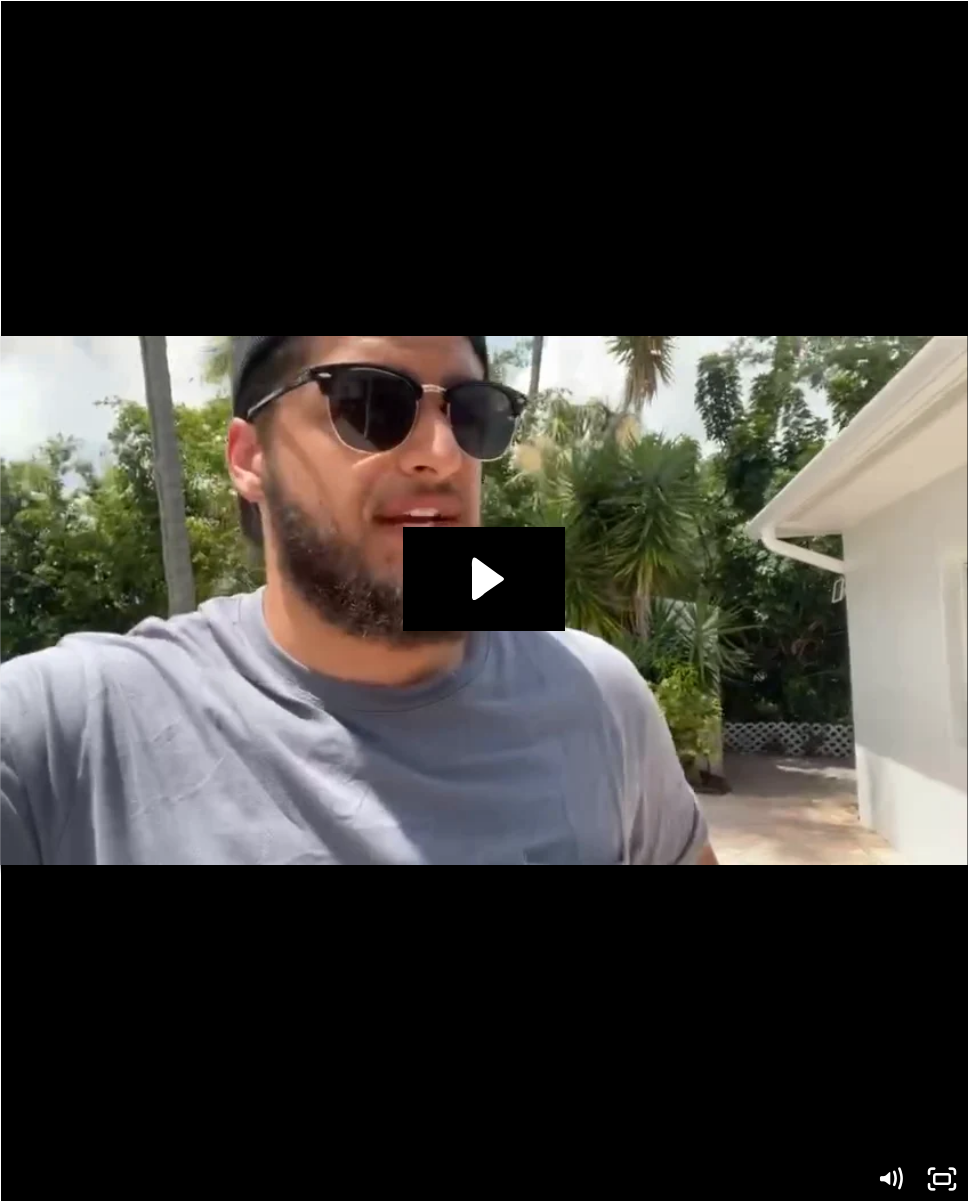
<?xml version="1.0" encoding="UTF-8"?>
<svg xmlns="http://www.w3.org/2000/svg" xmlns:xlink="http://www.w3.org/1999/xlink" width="968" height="1201">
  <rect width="100%" height="100%" fill="#ffffff" />
  <rect x="1" y="1" width="967" height="1200" fill="#000000" />
  <image x="0" y="326" width="1" height="549" xlink:href="image5.png" />
  <image x="0" y="328" width="1" height="545" xlink:href="image2.png" />
  <image x="0" y="336" width="968" height="529" xlink:href="image1.png" />
  <rect x="403" y="527" width="162" height="104" fill="#000000" />
  <path d="M 476 558 c -5 -3 -4 8 -4 9 v 31 l 1 2 c 3 1 10 -5 12 -7 l 13 -9 c 8 -5 8 -5 0 -10 z" fill="#ffffff" fill-rule="evenodd" />
  <image x="879" y="1167" width="24" height="23" xlink:href="image3.png" />
  <image x="927" y="1167" width="30" height="24" xlink:href="image4.png" />
</svg>
